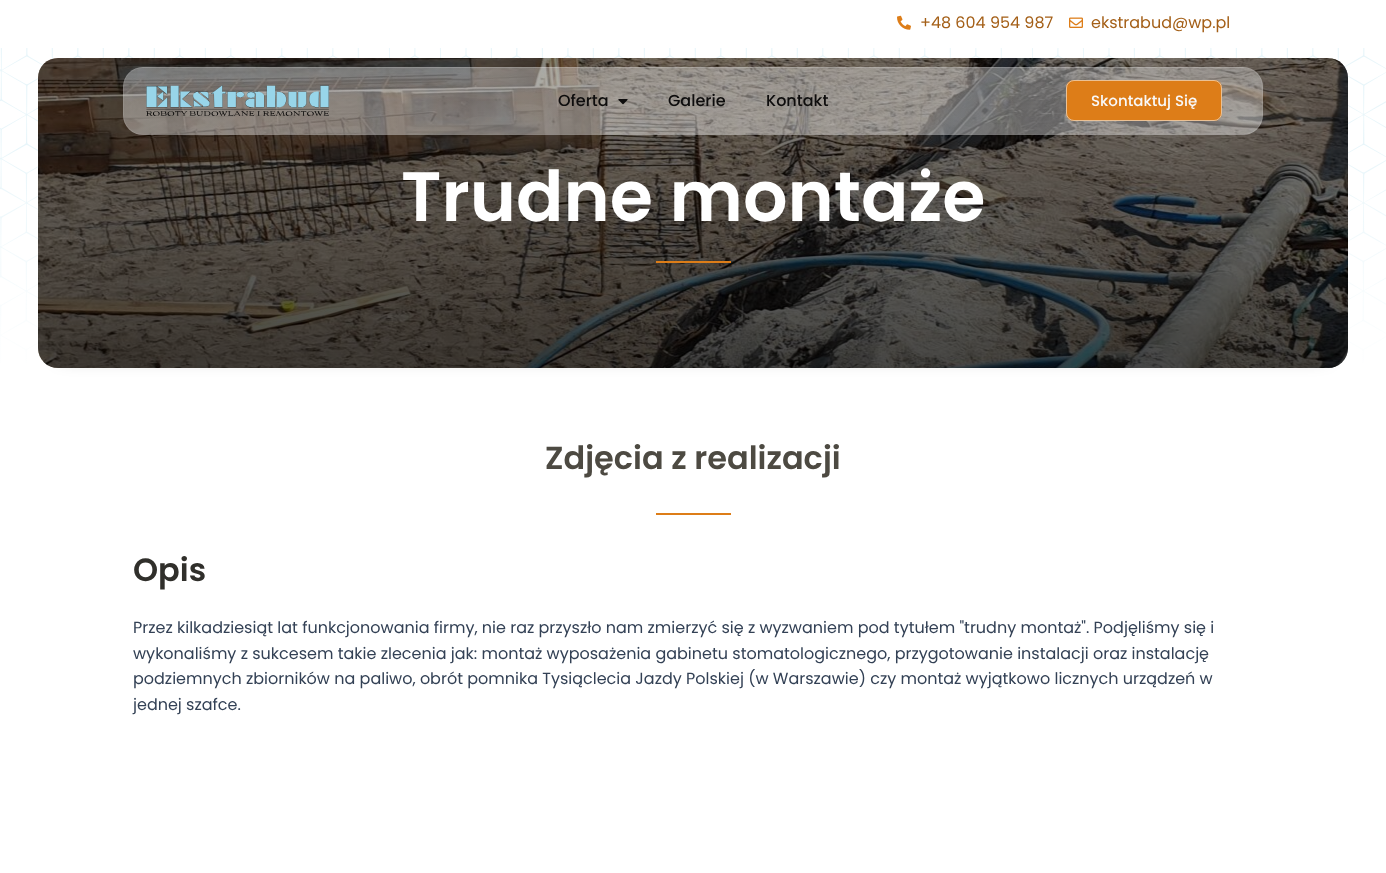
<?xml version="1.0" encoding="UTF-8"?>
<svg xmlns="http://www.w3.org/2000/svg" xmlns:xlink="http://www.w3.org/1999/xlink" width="1386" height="873">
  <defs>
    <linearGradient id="g1" gradientUnits="userSpaceOnUse" x1="693" y1="48" x2="693" y2="378"><stop offset="0.29" stop-color="#ffffff" stop-opacity="0.91" /><stop offset="1" stop-color="#ffffff" /></linearGradient>
    <linearGradient id="g2" gradientUnits="userSpaceOnUse" x1="693" y1="58" x2="693" y2="368"><stop offset="0" stop-color="#000000" stop-opacity="0.47" /><stop offset="1" stop-color="#000000" stop-opacity="0.72" /></linearGradient>
    <clipPath id="clip1"><rect x="123" y="67" width="1140" height="68" rx="20" /></clipPath>
    <linearGradient id="g3" gradientUnits="userSpaceOnUse" x1="693" y1="2" x2="693" y2="68"><stop offset="0" stop-color="#e4e4e4" stop-opacity="0.39" /><stop offset="1" stop-color="#ffffff" stop-opacity="0.39" /></linearGradient>
    <linearGradient id="g4" gradientUnits="userSpaceOnUse" x1="693" y1="68" x2="693" y2="134"><stop offset="0" stop-color="#e4e4e4" stop-opacity="0.39" /><stop offset="1" stop-color="#ffffff" stop-opacity="0.39" /></linearGradient>
    <linearGradient id="g5" gradientUnits="userSpaceOnUse" x1="693" y1="134" x2="693" y2="200"><stop offset="0" stop-color="#e4e4e4" stop-opacity="0.39" /><stop offset="1" stop-color="#ffffff" stop-opacity="0.39" /></linearGradient>
  </defs>
  <rect width="100%" height="100%" fill="#ffffff" />
  <image x="897" y="15" width="14" height="15" xlink:href="image1.png" />
  <image x="1069" y="17" width="14" height="11" xlink:href="image2.png" />
  <image x="0" y="48" width="1386" height="315" xlink:href="image5.png" />
  <rect y="48" width="1386" height="315" fill="url(#g1)" />
  <rect x="62" y="92" width="1262" height="262" fill="#000000" fill-opacity="0.5" filter="blur(10px)" />
  <image x="38" y="58" width="1310" height="310" xlink:href="image6.png" />
  <rect x="38" y="58" width="1310" height="310" rx="20" fill="url(#g2)" />
  <g clip-path="url(#clip1)">
    <rect x="137" y="67" width="1112" height="1" fill="url(#g3)" />
    <rect x="123" y="68" width="1140" height="66" fill="url(#g4)" />
    <rect x="137" y="134" width="1112" height="1" fill="url(#g5)" />
  </g>
  <rect x="123.5" y="67.5" width="1139" height="67" rx="19.5" fill="none" stroke="#ffffff" stroke-opacity="0.09" />
  <image x="146" y="85" width="183" height="31" xlink:href="image3.png" />
  <image x="618" y="99" width="10" height="6" xlink:href="image4.png" />
  <rect x="1066" y="80" width="156" height="41" rx="8" fill="#dd7d18" />
  <rect x="1066.5" y="80.5" width="155" height="40" rx="7.5" fill="none" stroke="#f4f4f4" stroke-opacity="0.57" />
  <rect x="656" y="261" width="75" height="2" fill="#dd7d18" />
  <rect x="656" y="513" width="75" height="2" fill="#dd7d18" />
  <text x="920" y="28" style="font-family: Poppins; font-size: 16px; fill: #a45f17">+48 604 954 987</text>
  <text x="1091" y="28" style="font-family: Poppins; font-size: 16px; fill: #a45f17">ekstrabud@wp.pl</text>
  <text x="558" y="106" style="font-family: Poppins; font-size: 16px; font-weight: 500; fill: #0e0d0d">Oferta</text>
  <text x="668" y="106" style="font-family: Poppins; font-size: 16px; font-weight: 500; fill: #0e0d0d">Galerie</text>
  <text x="766" y="106" style="font-family: Poppins; font-size: 16px; font-weight: 500; fill: #0e0d0d">Kontakt</text>
  <text x="1091" y="106" style="font-family: Poppins; font-size: 15px; font-weight: 500; fill: #f9f9f9">Skontaktuj Się</text>
  <text x="401" y="221" style="font-family: Poppins; font-size: 70px; font-weight: 600; fill: #ffffff">Trudne montaże</text>
  <text x="545" y="469" style="font-family: Poppins; font-size: 32px; font-weight: 600; fill: #4d4a42">Zdjęcia z realizacji</text>
  <text x="133" y="581" style="font-family: Poppins; font-size: 32px; font-weight: 600; fill: #302f2b">Opis</text>
  <text x="133" y="633" style="font-family: Poppins; font-size: 16px; fill: #334155">Przez kilkadziesiąt lat funkcjonowania firmy, nie raz przyszło nam zmierzyć się z wyzwaniem pod tytułem "trudny montaż". Podjęliśmy się i</text>
  <text x="133" y="659" style="font-family: Poppins; font-size: 16px; fill: #334155">wykonaliśmy z sukcesem takie zlecenia jak: montaż wyposażenia gabinetu stomatologicznego, przygotowanie instalacji oraz instalację</text>
  <text x="133" y="684" style="font-family: Poppins; font-size: 16px; fill: #334155">podziemnych zbiorników na paliwo, obrót pomnika Tysiąclecia Jazdy Polskiej (w Warszawie) czy montaż wyjątkowo licznych urządzeń w</text>
  <text x="133" y="710" style="font-family: Poppins; font-size: 16px; fill: #334155">jednej szafce.</text>
</svg>
